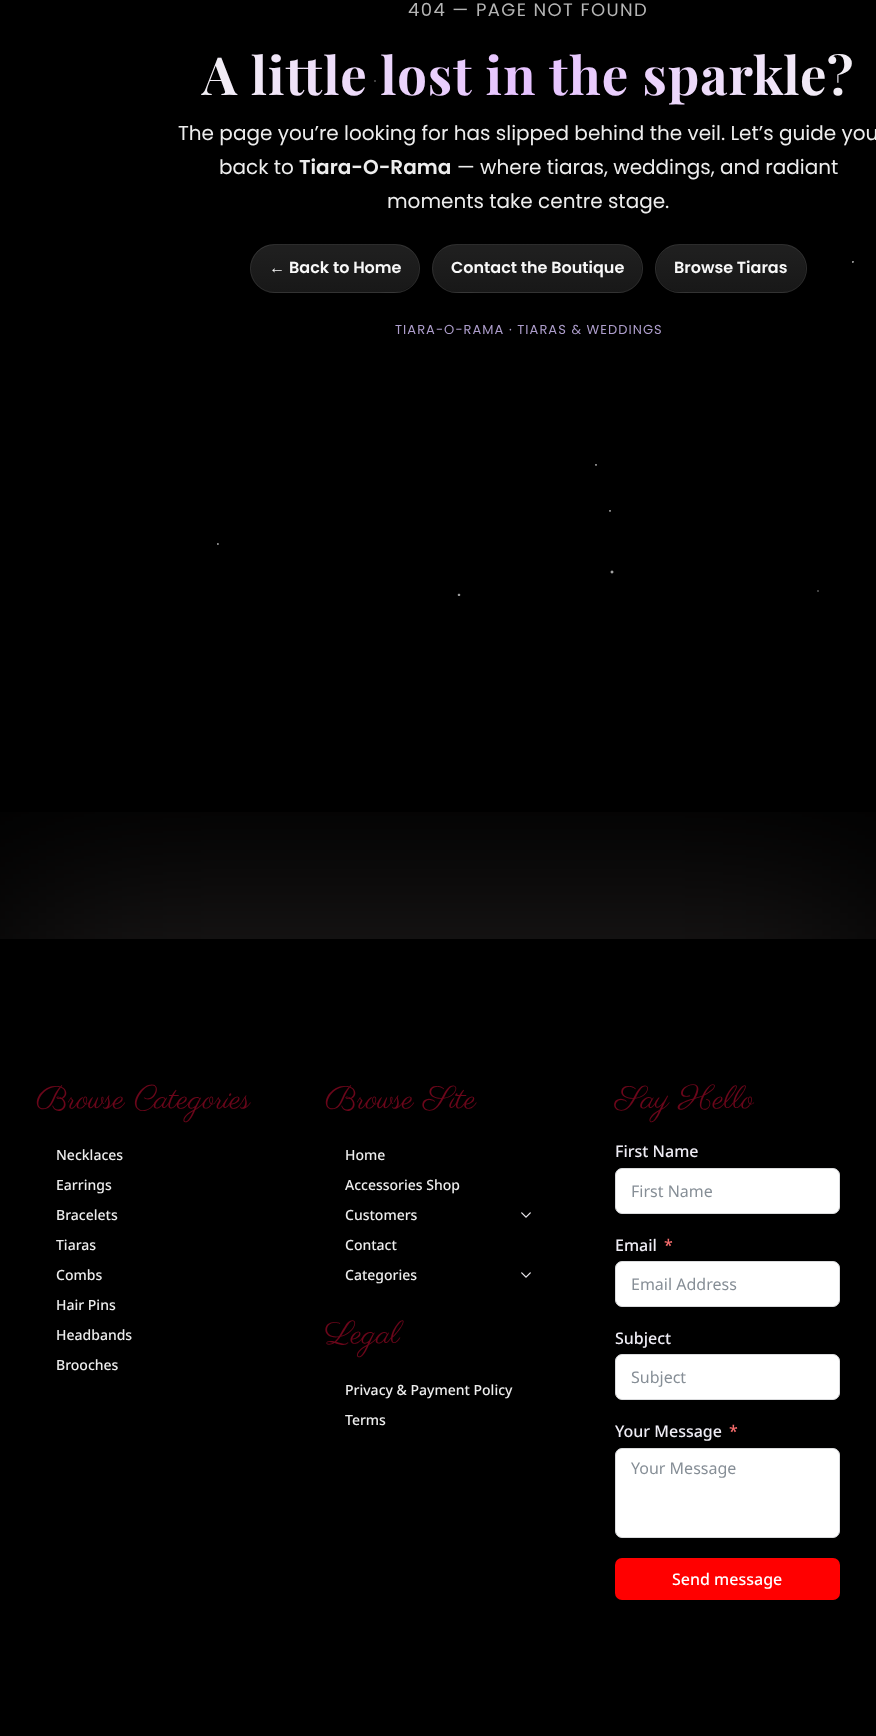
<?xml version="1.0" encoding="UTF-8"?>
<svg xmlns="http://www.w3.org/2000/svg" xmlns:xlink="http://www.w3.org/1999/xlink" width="876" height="1736">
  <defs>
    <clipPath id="clip1"><rect x="250" y="244" width="170" height="49" rx="24.5" /></clipPath>
    <linearGradient id="g1" gradientUnits="userSpaceOnUse" x1="335" y1="198" x2="335" y2="245"><stop offset="0" stop-color="#121212" /><stop offset="1" stop-color="#0a0a0a" /></linearGradient>
    <linearGradient id="g2" gradientUnits="userSpaceOnUse" x1="335" y1="245" x2="335" y2="292"><stop offset="0" stop-color="#121212" /><stop offset="1" stop-color="#0a0a0a" /></linearGradient>
    <linearGradient id="g3" gradientUnits="userSpaceOnUse" x1="335" y1="292" x2="335" y2="339"><stop offset="0" stop-color="#121212" /><stop offset="1" stop-color="#0a0a0a" /></linearGradient>
    <clipPath id="clip2"><rect x="432" y="244" width="211" height="49" rx="24.5" /></clipPath>
    <linearGradient id="g4" gradientUnits="userSpaceOnUse" x1="538" y1="198" x2="538" y2="245"><stop offset="0" stop-color="#121212" /><stop offset="1" stop-color="#0a0a0a" /></linearGradient>
    <linearGradient id="g5" gradientUnits="userSpaceOnUse" x1="538" y1="245" x2="538" y2="292"><stop offset="0" stop-color="#121212" /><stop offset="1" stop-color="#0a0a0a" /></linearGradient>
    <linearGradient id="g6" gradientUnits="userSpaceOnUse" x1="538" y1="292" x2="538" y2="339"><stop offset="0" stop-color="#121212" /><stop offset="1" stop-color="#0a0a0a" /></linearGradient>
    <clipPath id="clip3"><rect x="655" y="244" width="152" height="49" rx="24.5" /></clipPath>
    <linearGradient id="g7" gradientUnits="userSpaceOnUse" x1="731" y1="198" x2="731" y2="245"><stop offset="0" stop-color="#121212" /><stop offset="1" stop-color="#0a0a0a" /></linearGradient>
    <linearGradient id="g8" gradientUnits="userSpaceOnUse" x1="731" y1="245" x2="731" y2="292"><stop offset="0" stop-color="#121212" /><stop offset="1" stop-color="#0a0a0a" /></linearGradient>
    <linearGradient id="g9" gradientUnits="userSpaceOnUse" x1="731" y1="292" x2="731" y2="339"><stop offset="0" stop-color="#121212" /><stop offset="1" stop-color="#0a0a0a" /></linearGradient>
    <radialGradient id="g10" gradientUnits="userSpaceOnUse" cx="375" cy="81" r="1.4"><stop offset="0" stop-color="#d9d9d9" /><stop offset="0.4" stop-color="#828282" /><stop offset="0.7" stop-color="#000000" /></radialGradient>
    <radialGradient id="g11" gradientUnits="userSpaceOnUse" cx="624" cy="165" r="1.8"><stop offset="0" stop-color="#d9d9d9" /><stop offset="0.4" stop-color="#828282" /><stop offset="0.7" stop-color="#000000" /></radialGradient>
    <radialGradient id="g12" gradientUnits="userSpaceOnUse" cx="853" cy="262" r="2.1"><stop offset="0" stop-color="#d9d9d9" /><stop offset="0.4" stop-color="#828282" /><stop offset="0.7" stop-color="#000000" /></radialGradient>
    <radialGradient id="g13" gradientUnits="userSpaceOnUse" cx="596" cy="465" r="1.8"><stop offset="0" stop-color="#d9d9d9" /><stop offset="0.4" stop-color="#828282" /><stop offset="0.7" stop-color="#000000" /></radialGradient>
    <radialGradient id="g14" gradientUnits="userSpaceOnUse" cx="610" cy="511" r="1.8"><stop offset="0" stop-color="#d9d9d9" /><stop offset="0.4" stop-color="#828282" /><stop offset="0.7" stop-color="#000000" /></radialGradient>
    <radialGradient id="g15" gradientUnits="userSpaceOnUse" cx="218" cy="544" r="1.8"><stop offset="0" stop-color="#d9d9d9" /><stop offset="0.4" stop-color="#828282" /><stop offset="0.7" stop-color="#000000" /></radialGradient>
    <radialGradient id="g16" gradientUnits="userSpaceOnUse" cx="612" cy="572" r="2.8"><stop offset="0" stop-color="#d9d9d9" /><stop offset="0.4" stop-color="#828282" /><stop offset="0.7" stop-color="#000000" /></radialGradient>
    <radialGradient id="g17" gradientUnits="userSpaceOnUse" cx="818" cy="591" r="1.4"><stop offset="0" stop-color="#d9d9d9" /><stop offset="0.4" stop-color="#828282" /><stop offset="0.7" stop-color="#000000" /></radialGradient>
    <radialGradient id="g18" gradientUnits="userSpaceOnUse" cx="459" cy="595" r="2.5"><stop offset="0" stop-color="#d9d9d9" /><stop offset="0.4" stop-color="#828282" /><stop offset="0.7" stop-color="#000000" /></radialGradient>
    <clipPath id="clip4"><rect x="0" y="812" width="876" height="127" /></clipPath>
    <linearGradient id="g19" gradientUnits="userSpaceOnUse" x1="168" y1="73" x2="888" y2="73"><stop offset="0" stop-color="#f4f4f4" /><stop offset="0.5" stop-color="#e6c2ff" /><stop offset="1" stop-color="#f4f4f4" /></linearGradient>
  </defs>
  <rect width="100%" height="100%" fill="#000000" />
  <g clip-path="url(#clip1)">
    <rect x="267" y="244" width="135" height="1" fill="url(#g1)" />
    <rect x="250" y="245" width="170" height="47" fill="url(#g2)" />
    <rect x="268" y="292" width="134" height="1" fill="url(#g3)" />
  </g>
  <path d="M 274 245 c -30 0 -31 46 0 47 h 101 c 8 0 21 2 29 -2 c 24 -9 17 -45 -8 -45 z" fill="#ffffff" fill-opacity="0.06" />
  <rect x="250.5" y="244.5" width="169" height="48" rx="24" fill="none" stroke="#ffffff" stroke-opacity="0.14" />
  <g clip-path="url(#clip2)">
    <rect x="449" y="244" width="176" height="1" fill="url(#g4)" />
    <rect x="432" y="245" width="211" height="47" fill="url(#g5)" />
    <rect x="450" y="292" width="175" height="1" fill="url(#g6)" />
  </g>
  <path d="M 456 245 c -16 0 -28 18 -21 33 c 2 6 7 10 13 12 c 9 4 29 2 36 2 h 134 c 32 0 31 -47 0 -47 z" fill="#ffffff" fill-opacity="0.06" />
  <rect x="432.5" y="244.5" width="210" height="48" rx="24" fill="none" stroke="#ffffff" stroke-opacity="0.14" />
  <g clip-path="url(#clip3)">
    <rect x="672" y="244" width="117" height="1" fill="url(#g7)" />
    <rect x="655" y="245" width="152" height="47" fill="url(#g8)" />
    <rect x="673" y="292" width="116" height="1" fill="url(#g9)" />
  </g>
  <path d="M 680 245 c -26 0 -33 36 -9 45 c 7 3 18 2 26 2 h 85 c 32 -1 31 -47 0 -47 z" fill="#ffffff" fill-opacity="0.06" />
  <rect x="655.5" y="244.5" width="151" height="48" rx="24" fill="none" stroke="#ffffff" stroke-opacity="0.14" />
  <circle cx="375" cy="81" r="1" fill="url(#g10)" />
  <rect x="623" y="163" width="2" height="3" rx="1" fill="url(#g11)" />
  <circle cx="852.5" cy="261.5" r="1.5" fill="url(#g12)" />
  <rect x="595" y="463" width="2" height="3" rx="1" fill="url(#g13)" />
  <rect x="609" y="509" width="2" height="3" rx="1" fill="url(#g14)" />
  <rect x="216" y="543" width="3" height="2" rx="1" fill="url(#g15)" />
  <circle cx="612" cy="572" r="2" fill="url(#g16)" />
  <circle cx="818" cy="591" r="1" fill="url(#g17)" />
  <rect x="457" y="593" width="4" height="3" rx="1.5" fill="url(#g18)" />
  <g clip-path="url(#clip4)">
    <rect x="5" y="919" width="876" height="797" fill="#f3dddd" fill-opacity="0.14" filter="blur(100px)" />
  </g>
  <image x="521" y="1212" width="10" height="6" xlink:href="image1.png" />
  <image x="521" y="1272" width="10" height="6" xlink:href="image1.png" />
  <rect x="615.5" y="1168.5" width="224" height="45" rx="6.5" fill="#ffffff" stroke="#dadbdd" />
  <rect x="615.5" y="1261.5" width="224" height="45" rx="6.5" fill="#ffffff" stroke="#dadbdd" />
  <rect x="615.5" y="1354.5" width="224" height="45" rx="6.5" fill="#ffffff" stroke="#dadbdd" />
  <rect x="615.5" y="1448.5" width="224" height="89" rx="6.5" fill="#ffffff" stroke="#dadbdd" />
  <rect x="615" y="1558" width="225" height="42" rx="7" fill="#ff0000" />
  <text x="408" y="16" style="font-family: Poppins; font-size: 18px; letter-spacing: 1.4px; fill: #b5b5b5">404 — PAGE NOT FOUND</text>
  <text x="202" y="95" style="font-family: Playfair Display; font-size: 52.5px; font-weight: bold; letter-spacing: 1.05px; fill: url(#g19)">A little lost in the sparkle?</text>
  <text x="178" y="140" style="font-family: Poppins; font-size: 20px; fill: #ededed">The page you’re looking for has slipped behind the veil. Let’s guide you</text>
  <text x="219" y="174" style="font-family: Poppins; font-size: 20px; fill: #ededed">back to</text>
  <text x="299" y="174" style="font-family: Poppins; font-size: 20px; font-weight: 600; fill: #ededed">Tiara-O-Rama</text>
  <text x="457" y="174" style="font-family: Poppins; font-size: 20px; fill: #ededed">— where tiaras, weddings, and radiant</text>
  <text x="387" y="208" style="font-family: Poppins; font-size: 20px; fill: #ededed">moments take centre stage.</text>
  <text x="269" y="273" style="font-family: Liberation Serif; font-size: 16px; font-weight: bold; fill: #f8f8f8">←</text>
  <text x="289" y="273" style="font-family: Poppins; font-size: 16px; font-weight: 600; fill: #f8f8f8">Back to Home</text>
  <text x="451" y="273" style="font-family: Poppins; font-size: 16px; font-weight: 600; fill: #f8f8f8">Contact the Boutique</text>
  <text x="674" y="273" style="font-family: Poppins; font-size: 16px; font-weight: 600; fill: #f8f8f8">Browse Tiaras</text>
  <text x="395" y="334" style="font-family: Poppins; font-size: 13px; letter-spacing: 1.05px; fill: #ae9ecc">TIARA-O-RAMA · TIARAS &amp; WEDDINGS</text>
  <text x="36" y="1108" style="font-family: Parisienne; font-size: 32px; fill: #6b061a">Browse Categories</text>
  <text x="56" y="1160" style="font-family: Noto Sans; font-size: 14px; font-weight: 500; fill: #ededed">Necklaces</text>
  <text x="56" y="1190" style="font-family: Noto Sans; font-size: 14px; font-weight: 500; fill: #ededed">Earrings</text>
  <text x="56" y="1220" style="font-family: Noto Sans; font-size: 14px; font-weight: 500; fill: #ededed">Bracelets</text>
  <text x="56" y="1250" style="font-family: Noto Sans; font-size: 14px; font-weight: 500; fill: #ededed">Tiaras</text>
  <text x="56" y="1280" style="font-family: Noto Sans; font-size: 14px; font-weight: 500; fill: #ededed">Combs</text>
  <text x="56" y="1310" style="font-family: Noto Sans; font-size: 14px; font-weight: 500; fill: #ededed">Hair Pins</text>
  <text x="56" y="1340" style="font-family: Noto Sans; font-size: 14px; font-weight: 500; fill: #ededed">Headbands</text>
  <text x="56" y="1370" style="font-family: Noto Sans; font-size: 14px; font-weight: 500; fill: #ededed">Brooches</text>
  <text x="325" y="1108" style="font-family: Parisienne; font-size: 32px; fill: #6b061a">Browse Site</text>
  <text x="345" y="1160" style="font-family: Noto Sans; font-size: 14px; font-weight: 500; fill: #ededed">Home</text>
  <text x="345" y="1190" style="font-family: Noto Sans; font-size: 14px; font-weight: 500; fill: #ededed">Accessories Shop</text>
  <text x="345" y="1220" style="font-family: Noto Sans; font-size: 14px; font-weight: 500; fill: #ededed">Customers</text>
  <text x="345" y="1250" style="font-family: Noto Sans; font-size: 14px; font-weight: 500; fill: #ededed">Contact</text>
  <text x="345" y="1280" style="font-family: Noto Sans; font-size: 14px; font-weight: 500; fill: #ededed">Categories</text>
  <text x="325" y="1343" style="font-family: Parisienne; font-size: 32px; fill: #6b061a">Legal</text>
  <text x="345" y="1395" style="font-family: Noto Sans; font-size: 14px; font-weight: 500; fill: #ededed">Privacy &amp; Payment Policy</text>
  <text x="345" y="1425" style="font-family: Noto Sans; font-size: 14px; font-weight: 500; fill: #ededed">Terms</text>
  <text x="615" y="1108" style="font-family: Parisienne; font-size: 32px; fill: #6b061a">Say Hello</text>
  <text x="615" y="1157" style="font-family: Noto Sans; font-size: 16px; font-weight: 500; fill: #efedf5">First Name</text>
  <text x="631" y="1197" style="font-family: Noto Sans; font-size: 16px; fill: #868e96">First Name</text>
  <text x="615" y="1251" style="font-family: Noto Sans; font-size: 16px; font-weight: 500; fill: #efedf5">Email</text>
  <text x="664" y="1251" style="font-family: Noto Sans; font-size: 16px; font-weight: 500; fill: #f56c6c">*</text>
  <text x="631" y="1290" style="font-family: Noto Sans; font-size: 16px; fill: #868e96">Email Address</text>
  <text x="615" y="1344" style="font-family: Noto Sans; font-size: 16px; font-weight: 500; fill: #efedf5">Subject</text>
  <text x="631" y="1383" style="font-family: Noto Sans; font-size: 16px; fill: #868e96">Subject</text>
  <text x="615" y="1437" style="font-family: Noto Sans; font-size: 16px; font-weight: 500; fill: #efedf5">Your Message</text>
  <text x="729" y="1437" style="font-family: Noto Sans; font-size: 16px; font-weight: 500; fill: #f56c6c">*</text>
  <text x="631" y="1474" style="font-family: Noto Sans; font-size: 16px; fill: #868e96">Your Message</text>
  <text x="672" y="1585" style="font-family: Noto Sans; font-size: 16px; font-weight: 500; fill: #ffffff">Send message</text>
</svg>
